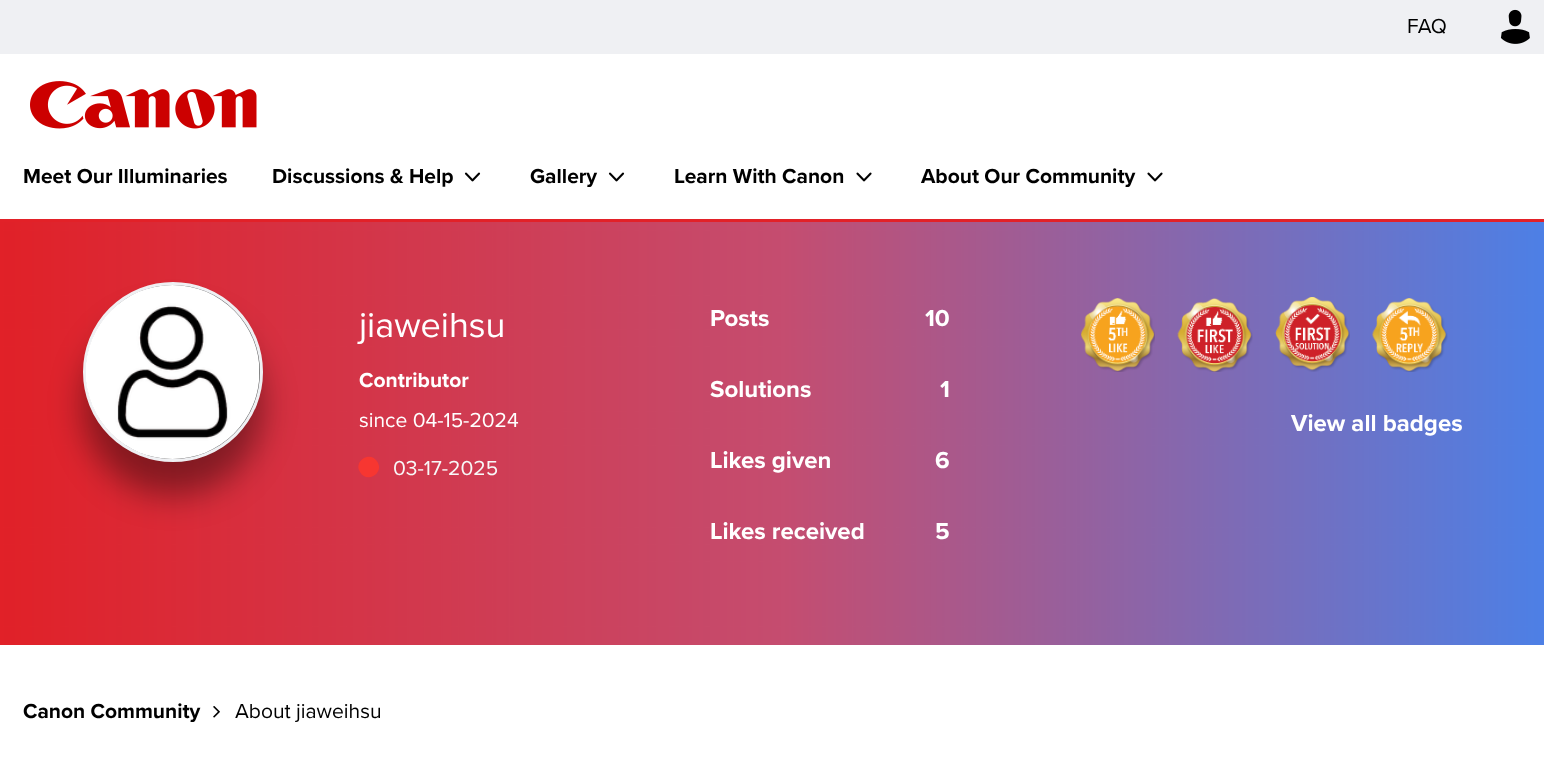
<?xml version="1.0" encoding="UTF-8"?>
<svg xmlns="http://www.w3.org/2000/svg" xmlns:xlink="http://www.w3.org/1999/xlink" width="1544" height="764">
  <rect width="100%" height="100%" fill="#ffffff" />
  <rect width="1544" height="54" fill="#eff0f3" />
  <image x="1500" y="9" width="30" height="35" xlink:href="image1.png" />
  <image x="30" y="81" width="227" height="48" xlink:href="image2.png" />
  <rect y="219" width="1544" height="3" fill="#e22128" />
  <image x="464" y="172" width="17" height="10" xlink:href="image3.png" />
  <image x="608" y="172" width="17" height="10" xlink:href="image3.png" />
  <image x="856" y="172" width="16" height="10" xlink:href="image4.png" />
  <image x="1147" y="172" width="16" height="10" xlink:href="image4.png" />
  <image x="0" y="222" width="1544" height="423" xlink:href="image5.png" />
  <rect x="83" y="315" width="180" height="180" rx="90" fill="#000000" fill-opacity="0.4" filter="blur(16.5px)" />
  <circle cx="173" cy="372" r="88.5" fill="#5d5d5d" stroke="#eff0f3" stroke-width="3" />
  <image x="86" y="285" width="174" height="174" xlink:href="image6.png" />
  <path d="M 377.5 462 c 7 11.5 -11 22 -17.5 10 c -7 -11.5 11 -22 17.5 -10 z" fill="#f73631" />
  <image x="1081" y="298" width="74" height="74" xlink:href="image7.png" />
  <image x="1177" y="298" width="76" height="74" xlink:href="image8.png" />
  <image x="1275" y="297" width="75" height="75" xlink:href="image9.png" />
  <image x="1372" y="298" width="76" height="74" xlink:href="image10.png" />
  <image x="213" y="706" width="7" height="12" xlink:href="image11.png" />
  <text x="1407" y="33" style="font-family: Proxima Nova; font-size: 21px; fill: #000000">FAQ</text>
  <text x="23" y="183" style="font-family: Proxima Nova; font-size: 21px; font-weight: bold; fill: #000000">Meet Our Illuminaries</text>
  <text x="272" y="183" style="font-family: Proxima Nova; font-size: 21px; font-weight: bold; fill: #000000">Discussions &amp; Help</text>
  <text x="530" y="183" style="font-family: Proxima Nova; font-size: 21px; font-weight: bold; fill: #000000">Gallery</text>
  <text x="674" y="183" style="font-family: Proxima Nova; font-size: 21px; font-weight: bold; fill: #000000">Learn With Canon</text>
  <text x="921" y="183" style="font-family: Proxima Nova; font-size: 21px; font-weight: bold; fill: #000000">About Our Community</text>
  <text x="359" y="337" style="font-family: Proxima Nova; font-size: 36px; fill: #ffffff">jiaweihsu</text>
  <text x="359" y="387" style="font-family: Proxima Nova; font-size: 21px; font-weight: bold; fill: #ffffff">Contributor</text>
  <text x="359" y="427" style="font-family: Proxima Nova; font-size: 21px; fill: #ffffff">since 04-15-2024</text>
  <text x="393" y="475" style="font-family: Proxima Nova; font-size: 21px; fill: #f8f8f8">03-17-2025</text>
  <text x="710" y="326" style="font-family: Proxima Nova; font-size: 24px; font-weight: bold; fill: #ffffff">Posts</text>
  <text x="925" y="326" style="font-family: Proxima Nova; font-size: 24px; font-weight: bold; fill: #ffffff">10</text>
  <text x="710" y="397" style="font-family: Proxima Nova; font-size: 24px; font-weight: bold; fill: #ffffff">Solutions</text>
  <text x="940" y="397" style="font-family: Proxima Nova; font-size: 24px; font-weight: bold; fill: #ffffff">1</text>
  <text x="710" y="468" style="font-family: Proxima Nova; font-size: 24px; font-weight: bold; fill: #ffffff">Likes given</text>
  <text x="935" y="468" style="font-family: Proxima Nova; font-size: 24px; font-weight: bold; fill: #ffffff">6</text>
  <text x="710" y="539" style="font-family: Proxima Nova; font-size: 24px; font-weight: bold; fill: #ffffff">Likes received</text>
  <text x="935" y="539" style="font-family: Proxima Nova; font-size: 24px; font-weight: bold; fill: #ffffff">5</text>
  <text x="1291" y="431" style="font-family: Proxima Nova; font-size: 24px; font-weight: bold; fill: #ffffff">View all badges</text>
  <text x="23" y="718" style="font-family: Proxima Nova; font-size: 21px; font-weight: bold; fill: #000000">Canon Community</text>
  <text x="235" y="718" style="font-family: Proxima Nova; font-size: 21px; fill: #000000">About jiaweihsu</text>
</svg>
